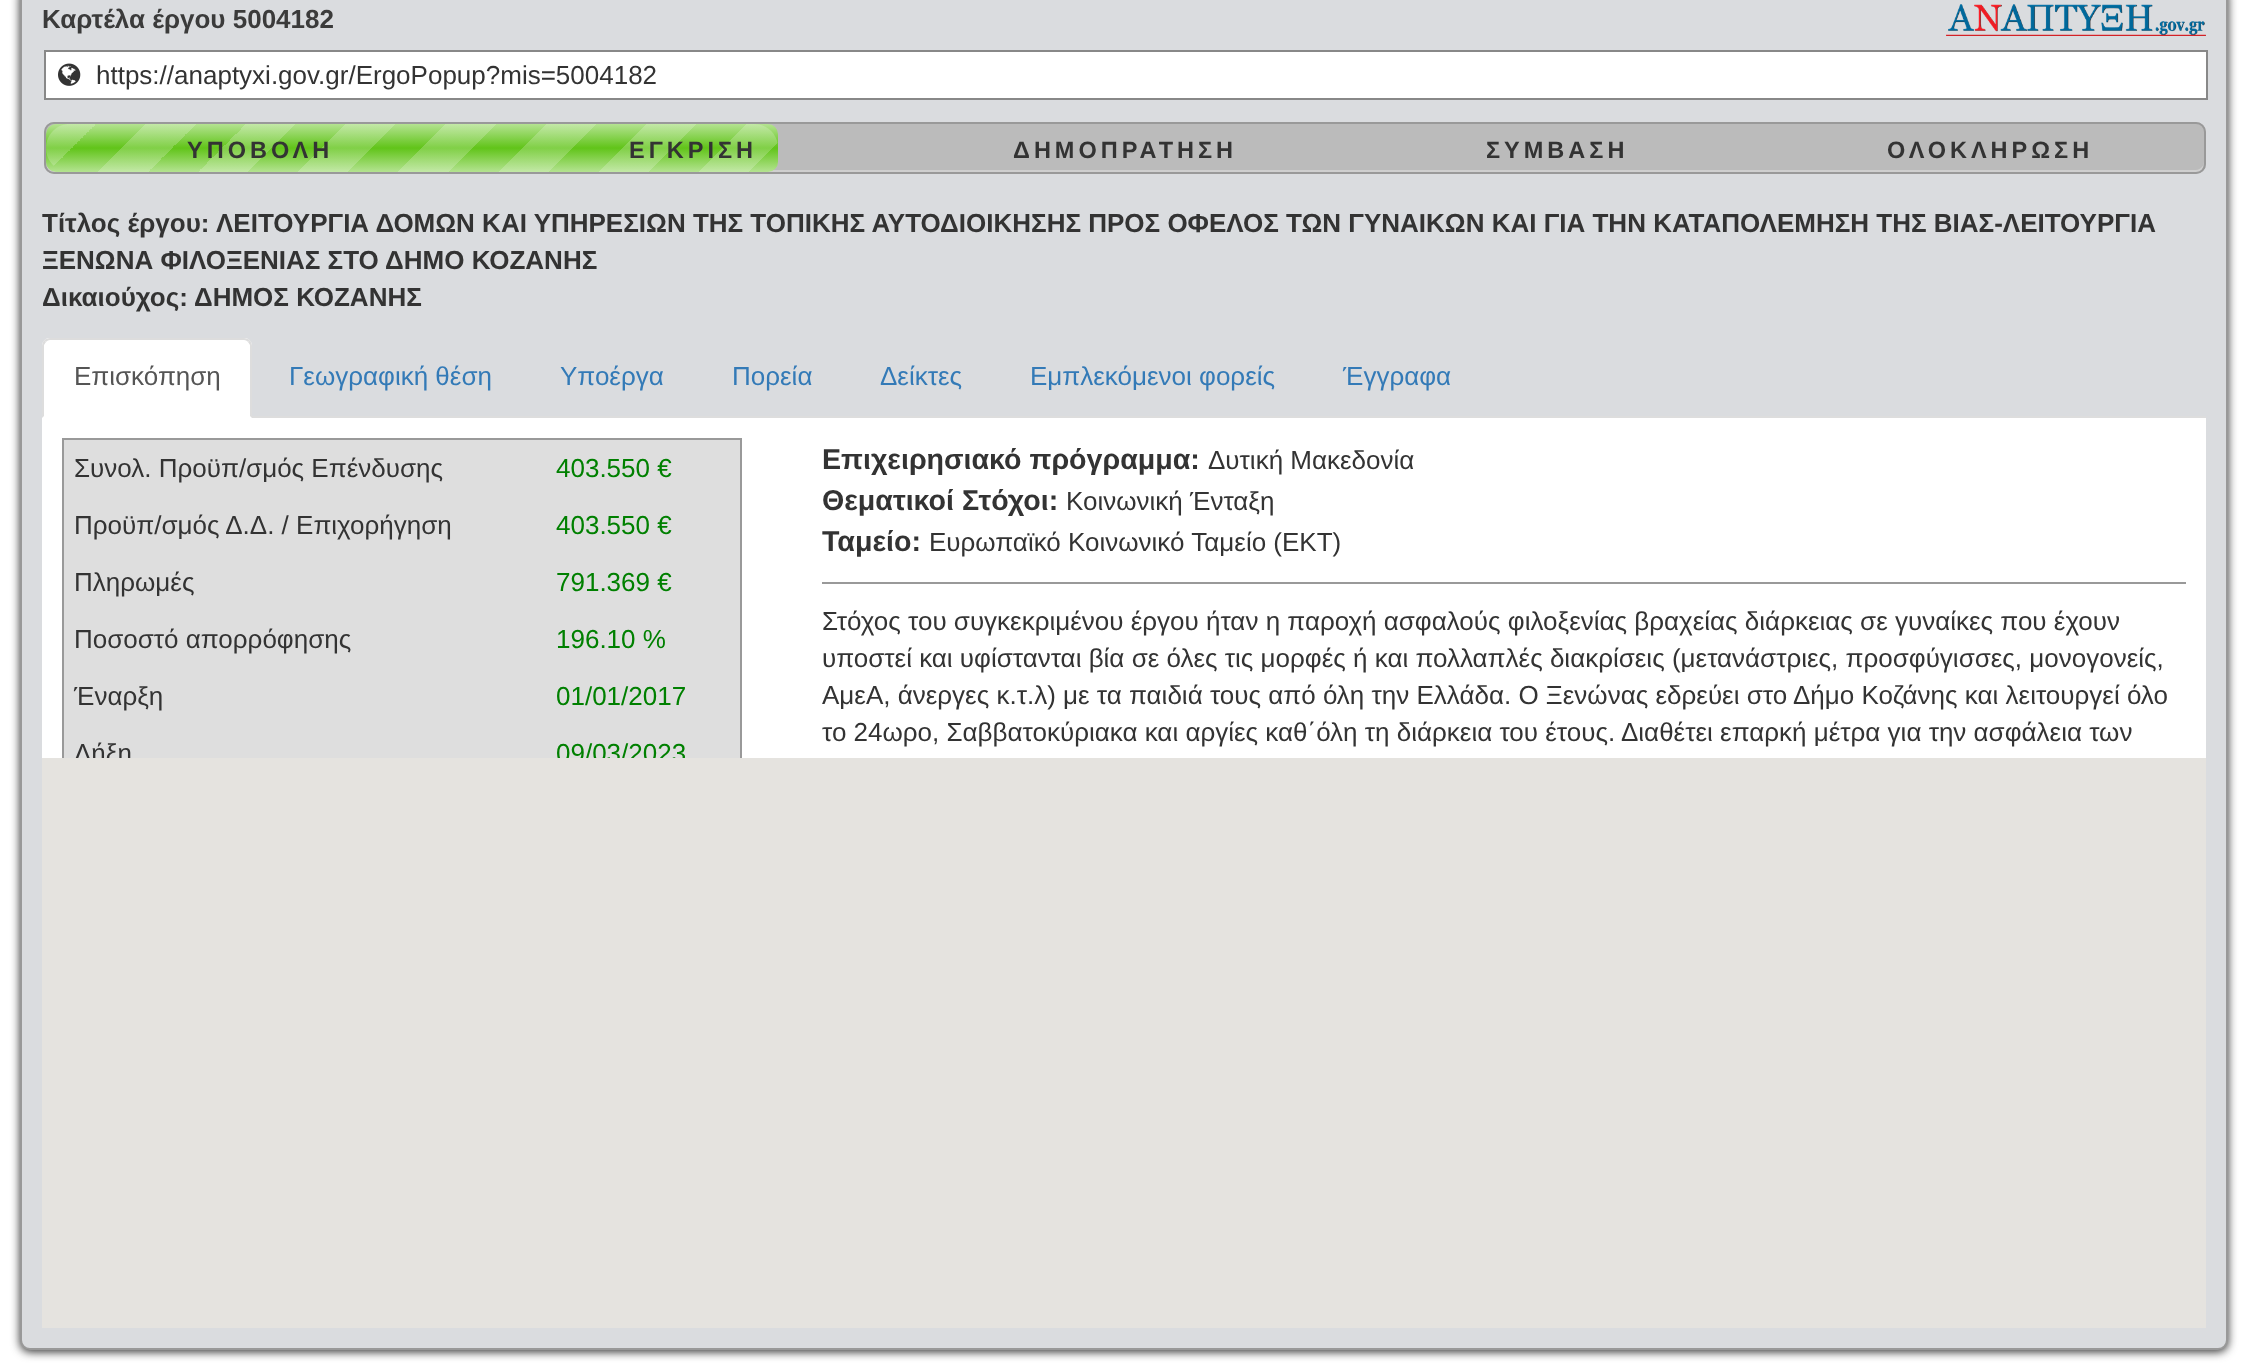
<?xml version="1.0" encoding="UTF-8"?>
<svg xmlns="http://www.w3.org/2000/svg" xmlns:xlink="http://www.w3.org/1999/xlink" width="2247" height="1370">
  <defs>
    <linearGradient id="g1" gradientUnits="userSpaceOnUse" x1="412" y1="124" x2="412" y2="172"><stop offset="0" stop-color="#b4e391" /><stop offset="0.5" stop-color="#61c419" /><stop offset="1" stop-color="#b4e391" /></linearGradient>
    <linearGradient id="g2" gradientUnits="userSpaceOnUse" x1="46" y1="124" x2="146" y2="224"><stop offset="0.25" stop-color="#ffffff" stop-opacity="0.2" /><stop offset="0.25" stop-color="#ffffff" stop-opacity="0" /><stop offset="0.5" stop-color="#ffffff" stop-opacity="0" /><stop offset="0.5" stop-color="#ffffff" stop-opacity="0.2" /><stop offset="0.75" stop-color="#ffffff" stop-opacity="0.2" /><stop offset="0.75" stop-color="#ffffff" stop-opacity="0" /><stop offset="1" stop-color="#000000" stop-opacity="0" /></linearGradient>
    <linearGradient id="g3" gradientUnits="userSpaceOnUse" x1="146" y1="124" x2="246" y2="224"><stop offset="0.25" stop-color="#ffffff" stop-opacity="0.2" /><stop offset="0.25" stop-color="#ffffff" stop-opacity="0" /><stop offset="0.5" stop-color="#ffffff" stop-opacity="0" /><stop offset="0.5" stop-color="#ffffff" stop-opacity="0.2" /><stop offset="0.75" stop-color="#ffffff" stop-opacity="0.2" /><stop offset="0.75" stop-color="#ffffff" stop-opacity="0" /><stop offset="1" stop-color="#000000" stop-opacity="0" /></linearGradient>
    <linearGradient id="g4" gradientUnits="userSpaceOnUse" x1="246" y1="124" x2="346" y2="224"><stop offset="0.25" stop-color="#ffffff" stop-opacity="0.2" /><stop offset="0.25" stop-color="#ffffff" stop-opacity="0" /><stop offset="0.5" stop-color="#ffffff" stop-opacity="0" /><stop offset="0.5" stop-color="#ffffff" stop-opacity="0.2" /><stop offset="0.75" stop-color="#ffffff" stop-opacity="0.2" /><stop offset="0.75" stop-color="#ffffff" stop-opacity="0" /><stop offset="1" stop-color="#000000" stop-opacity="0" /></linearGradient>
    <linearGradient id="g5" gradientUnits="userSpaceOnUse" x1="346" y1="124" x2="446" y2="224"><stop offset="0.25" stop-color="#ffffff" stop-opacity="0.2" /><stop offset="0.25" stop-color="#ffffff" stop-opacity="0" /><stop offset="0.5" stop-color="#ffffff" stop-opacity="0" /><stop offset="0.5" stop-color="#ffffff" stop-opacity="0.2" /><stop offset="0.75" stop-color="#ffffff" stop-opacity="0.2" /><stop offset="0.75" stop-color="#ffffff" stop-opacity="0" /><stop offset="1" stop-color="#000000" stop-opacity="0" /></linearGradient>
    <linearGradient id="g6" gradientUnits="userSpaceOnUse" x1="446" y1="124" x2="546" y2="224"><stop offset="0.25" stop-color="#ffffff" stop-opacity="0.2" /><stop offset="0.25" stop-color="#ffffff" stop-opacity="0" /><stop offset="0.5" stop-color="#ffffff" stop-opacity="0" /><stop offset="0.5" stop-color="#ffffff" stop-opacity="0.2" /><stop offset="0.75" stop-color="#ffffff" stop-opacity="0.2" /><stop offset="0.75" stop-color="#ffffff" stop-opacity="0" /><stop offset="1" stop-color="#000000" stop-opacity="0" /></linearGradient>
    <linearGradient id="g7" gradientUnits="userSpaceOnUse" x1="546" y1="124" x2="646" y2="224"><stop offset="0.25" stop-color="#ffffff" stop-opacity="0.2" /><stop offset="0.25" stop-color="#ffffff" stop-opacity="0" /><stop offset="0.5" stop-color="#ffffff" stop-opacity="0" /><stop offset="0.5" stop-color="#ffffff" stop-opacity="0.2" /><stop offset="0.75" stop-color="#ffffff" stop-opacity="0.2" /><stop offset="0.75" stop-color="#ffffff" stop-opacity="0" /><stop offset="1" stop-color="#000000" stop-opacity="0" /></linearGradient>
    <linearGradient id="g8" gradientUnits="userSpaceOnUse" x1="646" y1="124" x2="746" y2="224"><stop offset="0.25" stop-color="#ffffff" stop-opacity="0.2" /><stop offset="0.25" stop-color="#ffffff" stop-opacity="0" /><stop offset="0.5" stop-color="#ffffff" stop-opacity="0" /><stop offset="0.5" stop-color="#ffffff" stop-opacity="0.2" /><stop offset="0.75" stop-color="#ffffff" stop-opacity="0.2" /><stop offset="0.75" stop-color="#ffffff" stop-opacity="0" /><stop offset="1" stop-color="#000000" stop-opacity="0" /></linearGradient>
    <linearGradient id="g9" gradientUnits="userSpaceOnUse" x1="746" y1="124" x2="846" y2="224"><stop offset="0.25" stop-color="#ffffff" stop-opacity="0.2" /><stop offset="0.25" stop-color="#ffffff" stop-opacity="0" /><stop offset="0.5" stop-color="#ffffff" stop-opacity="0" /><stop offset="0.5" stop-color="#ffffff" stop-opacity="0.2" /><stop offset="0.75" stop-color="#ffffff" stop-opacity="0.2" /><stop offset="0.75" stop-color="#ffffff" stop-opacity="0" /><stop offset="1" stop-color="#000000" stop-opacity="0" /></linearGradient>
  </defs>
  <rect width="100%" height="100%" fill="#ffffff" />
  <rect x="20" y="-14" width="2208" height="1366" rx="10" fill="#333333" filter="blur(5px)" />
  <rect x="21" y="-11" width="2206" height="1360" rx="9" fill="#dadcdf" stroke="#999999" stroke-width="2" />
  <image x="1946" y="4" width="260" height="32" xlink:href="image1.png" />
  <rect x="45" y="51" width="2162" height="48" fill="#ffffff" stroke="#888888" stroke-width="2" />
  <image x="58" y="63" width="23" height="23" xlink:href="image2.png" />
  <rect x="44" y="122" width="2162" height="52" rx="10" fill="#bbbbbb" />
  <path d="M 46 162 c 0 5 2 10 8 10 h 2142 c 6 0 8 -5 8 -10 c 0 4 -4 8 -8 8 h -2142 c -4 0 -8 -4 -8 -8 z" fill="#cfcfcf" />
  <rect x="45" y="123" width="2160" height="50" rx="9" fill="none" stroke="#999999" stroke-width="2" />
  <rect x="46" y="124" width="732" height="48" rx="10" fill="url(#g1)" />
  <path d="M 70 124 h 76 v 48 h -76 c -13.5 0 -24 -10.5 -24 -24 c 0 -13.5 10.5 -24 24 -24 z" fill="url(#g2)" />
  <rect x="146" y="124" width="100" height="48" fill="url(#g3)" />
  <rect x="246" y="124" width="100" height="48" fill="url(#g4)" />
  <rect x="346" y="124" width="100" height="48" fill="url(#g5)" />
  <rect x="446" y="124" width="100" height="48" fill="url(#g6)" />
  <rect x="546" y="124" width="100" height="48" fill="url(#g7)" />
  <rect x="646" y="124" width="100" height="48" fill="url(#g8)" />
  <path d="M 746 124 h 8 c 13.5 0 24 10.5 24 24 c 0 13.5 -10.5 24 -24 24 h -8 z" fill="url(#g9)" />
  <rect x="252" y="416" width="1954" height="2" fill="#dddddd" />
  <path d="M 50 338 h 194 c 4.5 0 8 3.5 8 8 v 72 h -210 v -72 c 0 -4.5 3.5 -8 8 -8 z" fill="#ffffff" />
  <path d="M 50 338 c -2 0 -4 1 -6 2 l 2 2 c 1 -1 2 -2 4 -2 h 194 c 2 0 3 1 4 2 l 2 -2 c -2 -1 -4 -2 -6 -2 z" fill="#dddddd" />
  <path d="M 252 418 v -72 c 0 -2 -1 -4 -2 -6 l -2 2 l 2 3 v 71 z" fill="#dddddd" />
  <path d="M 42 418 l 2 -2 v -71 l 2 -3 l -2 -2 c -1 2 -2 4 -2 6 z" fill="#dddddd" />
  <rect x="42" y="418" width="2164" height="340" fill="#ffffff" />
  <rect x="64" y="440" width="676" height="318" fill="#dedede" />
  <rect x="62" y="438" width="680" height="2" fill="#999999" />
  <rect x="740" y="438" width="2" height="320" fill="#999999" />
  <rect x="62" y="438" width="2" height="320" fill="#999999" />
  <rect x="822" y="582" width="1364" height="2" fill="#999999" />
  <text x="42" y="28" style="font-family: Liberation Sans; font-size: 26px; font-weight: bold; fill: #3b3b3b">Καρτέλα έργου 5004182</text>
  <text x="96" y="84" style="font-family: Liberation Sans; font-size: 26px; fill: #333333">https://anaptyxi.gov.gr/ErgoPopup?mis=5004182</text>
  <text x="187" y="158" style="font-family: Liberation Sans; font-size: 23.5px; font-weight: bold; letter-spacing: 4px; fill: #333333">ΥΠΟΒΟΛΗ</text>
  <text x="629" y="158" style="font-family: Liberation Sans; font-size: 23.5px; font-weight: bold; letter-spacing: 4px; fill: #333333">ΕΓΚΡΙΣΗ</text>
  <text x="1013" y="158" style="font-family: Liberation Sans; font-size: 23.5px; font-weight: bold; letter-spacing: 4px; fill: #333333">ΔΗΜΟΠΡΑΤΗΣΗ</text>
  <text x="1486" y="158" style="font-family: Liberation Sans; font-size: 23.5px; font-weight: bold; letter-spacing: 4px; fill: #333333">ΣΥΜΒΑΣΗ</text>
  <text x="1887" y="158" style="font-family: Liberation Sans; font-size: 23.5px; font-weight: bold; letter-spacing: 4px; fill: #333333">ΟΛΟΚΛΗΡΩΣΗ</text>
  <text x="42" y="232" style="font-family: Liberation Sans; font-size: 26px; font-weight: bold; fill: #333333">Τίτλος έργου:</text>
  <text x="216" y="232" style="font-family: Liberation Sans; font-size: 26px; font-weight: bold; fill: #333333">ΛΕΙΤΟΥΡΓΙΑ ΔΟΜΩΝ ΚΑΙ ΥΠΗΡΕΣΙΩΝ ΤΗΣ ΤΟΠΙΚΗΣ ΑΥΤΟΔΙΟΙΚΗΣΗΣ ΠΡΟΣ ΟΦΕΛΟΣ ΤΩΝ ΓΥΝΑΙΚΩΝ ΚΑΙ ΓΙΑ ΤΗΝ ΚΑΤΑΠΟΛΕΜΗΣΗ ΤΗΣ ΒΙΑΣ-ΛΕΙΤΟΥΡΓΙΑ</text>
  <text x="42" y="269" style="font-family: Liberation Sans; font-size: 26px; font-weight: bold; fill: #333333">ΞΕΝΩΝΑ ΦΙΛΟΞΕΝΙΑΣ ΣΤΟ ΔΗΜΟ ΚΟΖΑΝΗΣ</text>
  <text x="42" y="306" style="font-family: Liberation Sans; font-size: 26px; font-weight: bold; fill: #333333">Δικαιούχος:</text>
  <text x="194" y="306" style="font-family: Liberation Sans; font-size: 26px; font-weight: bold; fill: #333333">ΔΗΜΟΣ ΚΟΖΑΝΗΣ</text>
  <text x="74" y="385" style="font-family: Liberation Sans; font-size: 26px; fill: #555555">Επισκόπηση</text>
  <text x="289" y="385" style="font-family: Liberation Sans; font-size: 26px; fill: #337ab7">Γεωγραφική θέση</text>
  <text x="560" y="385" style="font-family: Liberation Sans; font-size: 26px; fill: #337ab7">Υποέργα</text>
  <text x="732" y="385" style="font-family: Liberation Sans; font-size: 26px; fill: #337ab7">Πορεία</text>
  <text x="880" y="385" style="font-family: Liberation Sans; font-size: 26px; fill: #337ab7">Δείκτες</text>
  <text x="1030" y="385" style="font-family: Liberation Sans; font-size: 26px; fill: #337ab7">Εμπλεκόμενοι φορείς</text>
  <text x="1343" y="385" style="font-family: Liberation Sans; font-size: 26px; fill: #337ab7">Έγγραφα</text>
  <text x="74" y="477" style="font-family: Liberation Sans; font-size: 26px; fill: #333333">Συνολ. Προϋπ/σμός Επένδυσης</text>
  <text x="556" y="477" style="font-family: Liberation Sans; font-size: 26px; fill: #008000">403.550 €</text>
  <text x="74" y="534" style="font-family: Liberation Sans; font-size: 26px; fill: #333333">Προϋπ/σμός Δ.Δ. / Επιχορήγηση</text>
  <text x="556" y="534" style="font-family: Liberation Sans; font-size: 26px; fill: #008000">403.550 €</text>
  <text x="74" y="591" style="font-family: Liberation Sans; font-size: 26px; fill: #333333">Πληρωμές</text>
  <text x="556" y="591" style="font-family: Liberation Sans; font-size: 26px; fill: #008000">791.369 €</text>
  <text x="74" y="648" style="font-family: Liberation Sans; font-size: 26px; fill: #333333">Ποσοστό απορρόφησης</text>
  <text x="556" y="648" style="font-family: Liberation Sans; font-size: 26px; fill: #008000">196.10 %</text>
  <text x="74" y="705" style="font-family: Liberation Sans; font-size: 26px; fill: #333333">Έναρξη</text>
  <text x="556" y="705" style="font-family: Liberation Sans; font-size: 26px; fill: #008000">01/01/2017</text>
  <text x="74" y="762" style="font-family: Liberation Sans; font-size: 26px; fill: #333333">Λήξη</text>
  <text x="556" y="762" style="font-family: Liberation Sans; font-size: 26px; fill: #008000">09/03/2023</text>
  <text x="822" y="469" style="font-family: Liberation Sans; font-size: 28.6px; font-weight: bold; fill: #333333">Επιχειρησιακό πρόγραμμα:</text>
  <text x="1208" y="469" style="font-family: Liberation Sans; font-size: 26px; fill: #333333">Δυτική Μακεδονία</text>
  <text x="822" y="510" style="font-family: Liberation Sans; font-size: 28.6px; font-weight: bold; fill: #333333">Θεματικοί Στόχοι:</text>
  <text x="1066" y="510" style="font-family: Liberation Sans; font-size: 26px; fill: #333333">Κοινωνική Ένταξη</text>
  <text x="822" y="551" style="font-family: Liberation Sans; font-size: 28.6px; font-weight: bold; fill: #333333">Ταμείο:</text>
  <text x="929" y="551" style="font-family: Liberation Sans; font-size: 26px; fill: #333333">Ευρωπαϊκό Κοινωνικό Ταμείο (ΕΚΤ)</text>
  <text x="822" y="630" style="font-family: Liberation Sans; font-size: 26px; fill: #333333">Στόχος του συγκεκριμένου έργου ήταν η παροχή ασφαλούς φιλοξενίας βραχείας διάρκειας σε γυναίκες που έχουν</text>
  <text x="822" y="667" style="font-family: Liberation Sans; font-size: 26px; fill: #333333">υποστεί και υφίστανται βία σε όλες τις μορφές ή και πολλαπλές διακρίσεις (μετανάστριες, προσφύγισσες, μονογονείς,</text>
  <text x="822" y="704" style="font-family: Liberation Sans; font-size: 26px; fill: #333333">ΑμεΑ, άνεργες κ.τ.λ) με τα παιδιά τους από όλη την Ελλάδα. Ο Ξενώνας εδρεύει στο Δήμο Κοζάνης και λειτουργεί όλο</text>
  <text x="822" y="741" style="font-family: Liberation Sans; font-size: 26px; fill: #333333">το 24ωρο, Σαββατοκύριακα και αργίες καθ΄όλη τη διάρκεια του έτους. Διαθέτει επαρκή μέτρα για την ασφάλεια των</text>
  <rect x="42" y="758" width="2164" height="570" fill="#e5e3df" />
</svg>
